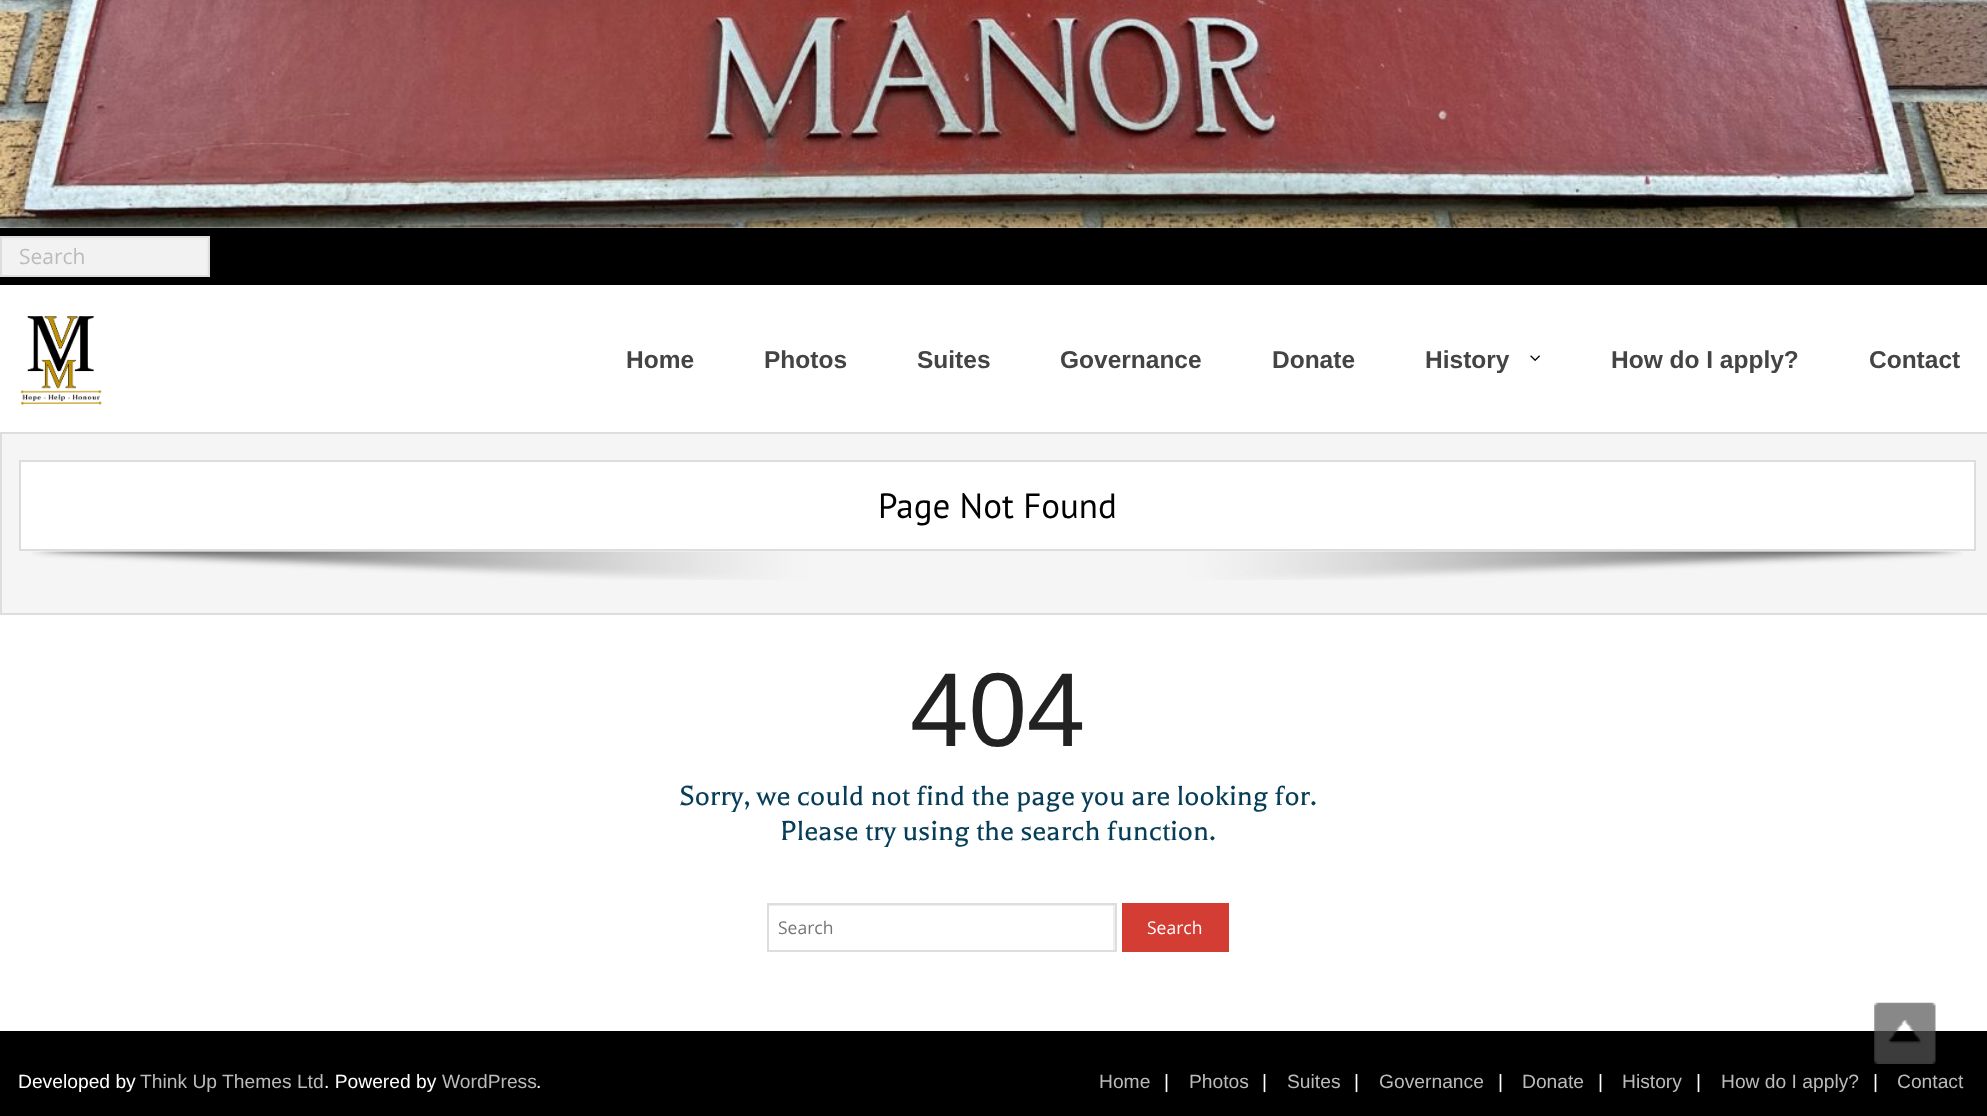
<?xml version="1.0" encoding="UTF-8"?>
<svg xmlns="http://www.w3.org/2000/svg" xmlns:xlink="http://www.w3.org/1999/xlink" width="1987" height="1116">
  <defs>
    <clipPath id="clip1"><rect x="2" y="238" width="206" height="37" /></clipPath>
    <clipPath id="clip2"><rect x="768" y="905" width="347" height="45" /></clipPath>
  </defs>
  <rect width="100%" height="100%" fill="#ffffff" />
  <rect y="432" width="1987" height="2" fill="#dddddd" />
  <image x="0" y="0" width="1987" height="228" xlink:href="image1.png" />
  <rect y="228" width="1987" height="57" fill="#000000" />
  <rect x="2" y="240" width="204" height="35" fill="#f2f2f2" />
  <g clip-path="url(#clip1)">
    <path d="M -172 65 h 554 v 383 h -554 z m 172 175 h 206 v 36 h -206 z" fill="#eeeeee" fill-rule="evenodd" />
  </g>
  <rect x="1" y="237" width="208" height="39" fill="none" stroke="#dddddd" stroke-width="2" />
  <image x="20" y="316" width="82" height="90" xlink:href="image2.png" />
  <image x="1530" y="355" width="10" height="6" xlink:href="image3.png" />
  <rect x="2" y="434" width="1985" height="179" fill="#f5f5f5" />
  <rect y="613" width="1987" height="2" fill="#dddddd" />
  <rect y="434" width="2" height="180" fill="#dddddd" />
  <rect x="20" y="461" width="1955" height="89" fill="#ffffff" stroke="#dddddd" stroke-width="2" />
  <image x="32" y="551" width="1931" height="29" xlink:href="image4.png" />
  <g clip-path="url(#clip2)">
    <path d="M 595 732 h 693 v 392 h -693 z m 171 174 h 347 v 46 h -347 z" fill="#eeeeee" fill-rule="evenodd" />
  </g>
  <rect x="768" y="904" width="348" height="47" fill="none" stroke="#dddddd" stroke-width="2" />
  <rect x="1122" y="903" width="107" height="49" fill="#d33d33" />
  <rect y="1031" width="1987" height="85" fill="#000000" />
  <image x="1874" y="1002" width="62" height="62" xlink:href="image5.png" />
  <text x="19" y="264" style="font-family: Open Sans; font-size: 21px; fill: #bbbbbb">Search</text>
  <text x="626" y="368" style="font-family: Liberation Sans; font-size: 24.5px; font-weight: bold; fill: #444444">Home</text>
  <text x="764" y="368" style="font-family: Liberation Sans; font-size: 24.5px; font-weight: bold; fill: #444444">Photos</text>
  <text x="917" y="368" style="font-family: Liberation Sans; font-size: 24.5px; font-weight: bold; fill: #444444">Suites</text>
  <text x="1060" y="368" style="font-family: Liberation Sans; font-size: 24.5px; font-weight: bold; fill: #444444">Governance</text>
  <text x="1272" y="368" style="font-family: Liberation Sans; font-size: 24.5px; font-weight: bold; fill: #444444">Donate</text>
  <text x="1425" y="368" style="font-family: Liberation Sans; font-size: 24.5px; font-weight: bold; fill: #444444">History</text>
  <text x="1611" y="368" style="font-family: Liberation Sans; font-size: 24.5px; font-weight: bold; fill: #444444">How do I apply?</text>
  <text x="1869" y="368" style="font-family: Liberation Sans; font-size: 24.5px; font-weight: bold; fill: #444444">Contact</text>
  <text x="878" y="518" style="font-family: PT Sans; font-size: 35px; fill: #000000">Page Not Found</text>
  <text x="910" y="746" style="font-family: Liberation Sans; font-size: 105px; fill: #222222">404</text>
  <text x="679" y="805" style="font-family: Balthazar; font-size: 31.5px; fill: #063d57">Sorry, we could not find the page you are looking for.</text>
  <text x="780" y="840" style="font-family: Balthazar; font-size: 31.5px; fill: #063d57">Please try using the search function.</text>
  <text x="778" y="934" style="font-family: Open Sans; font-size: 17.5px; fill: #757575">Search</text>
  <text x="1147" y="934" style="font-family: Open Sans; font-size: 17.5px; fill: #ffffff">Search</text>
  <text x="18" y="1088" style="font-family: Liberation Sans; font-size: 19.25px; fill: #ffffff">Developed by</text>
  <text x="140" y="1088" style="font-family: Liberation Sans; font-size: 19.25px; fill: #bbbbbb">Think Up Themes Ltd</text>
  <text x="324" y="1088" style="font-family: Liberation Sans; font-size: 19.25px; fill: #ffffff">. Powered by</text>
  <text x="442" y="1088" style="font-family: Liberation Sans; font-size: 19.25px; fill: #bbbbbb">WordPress</text>
  <text x="536" y="1088" style="font-family: Liberation Sans; font-size: 19.25px; fill: #ffffff">.</text>
  <text x="1099" y="1088" style="font-family: Liberation Sans; font-size: 19.25px; fill: #bbbbbb">Home</text>
  <text x="1164" y="1088" style="font-family: Liberation Sans; font-size: 19.25px; fill: #ffffff">|</text>
  <text x="1189" y="1088" style="font-family: Liberation Sans; font-size: 19.25px; fill: #bbbbbb">Photos</text>
  <text x="1262" y="1088" style="font-family: Liberation Sans; font-size: 19.25px; fill: #ffffff">|</text>
  <text x="1287" y="1088" style="font-family: Liberation Sans; font-size: 19.25px; fill: #bbbbbb">Suites</text>
  <text x="1354" y="1088" style="font-family: Liberation Sans; font-size: 19.25px; fill: #ffffff">|</text>
  <text x="1379" y="1088" style="font-family: Liberation Sans; font-size: 19.25px; fill: #bbbbbb">Governance</text>
  <text x="1498" y="1088" style="font-family: Liberation Sans; font-size: 19.25px; fill: #ffffff">|</text>
  <text x="1522" y="1088" style="font-family: Liberation Sans; font-size: 19.25px; fill: #bbbbbb">Donate</text>
  <text x="1598" y="1088" style="font-family: Liberation Sans; font-size: 19.25px; fill: #ffffff">|</text>
  <text x="1622" y="1088" style="font-family: Liberation Sans; font-size: 19.25px; fill: #bbbbbb">History</text>
  <text x="1696" y="1088" style="font-family: Liberation Sans; font-size: 19.25px; fill: #ffffff">|</text>
  <text x="1721" y="1088" style="font-family: Liberation Sans; font-size: 19.25px; fill: #bbbbbb">How do I apply?</text>
  <text x="1873" y="1088" style="font-family: Liberation Sans; font-size: 19.25px; fill: #ffffff">|</text>
  <text x="1897" y="1088" style="font-family: Liberation Sans; font-size: 19.25px; fill: #bbbbbb">Contact</text>
</svg>
